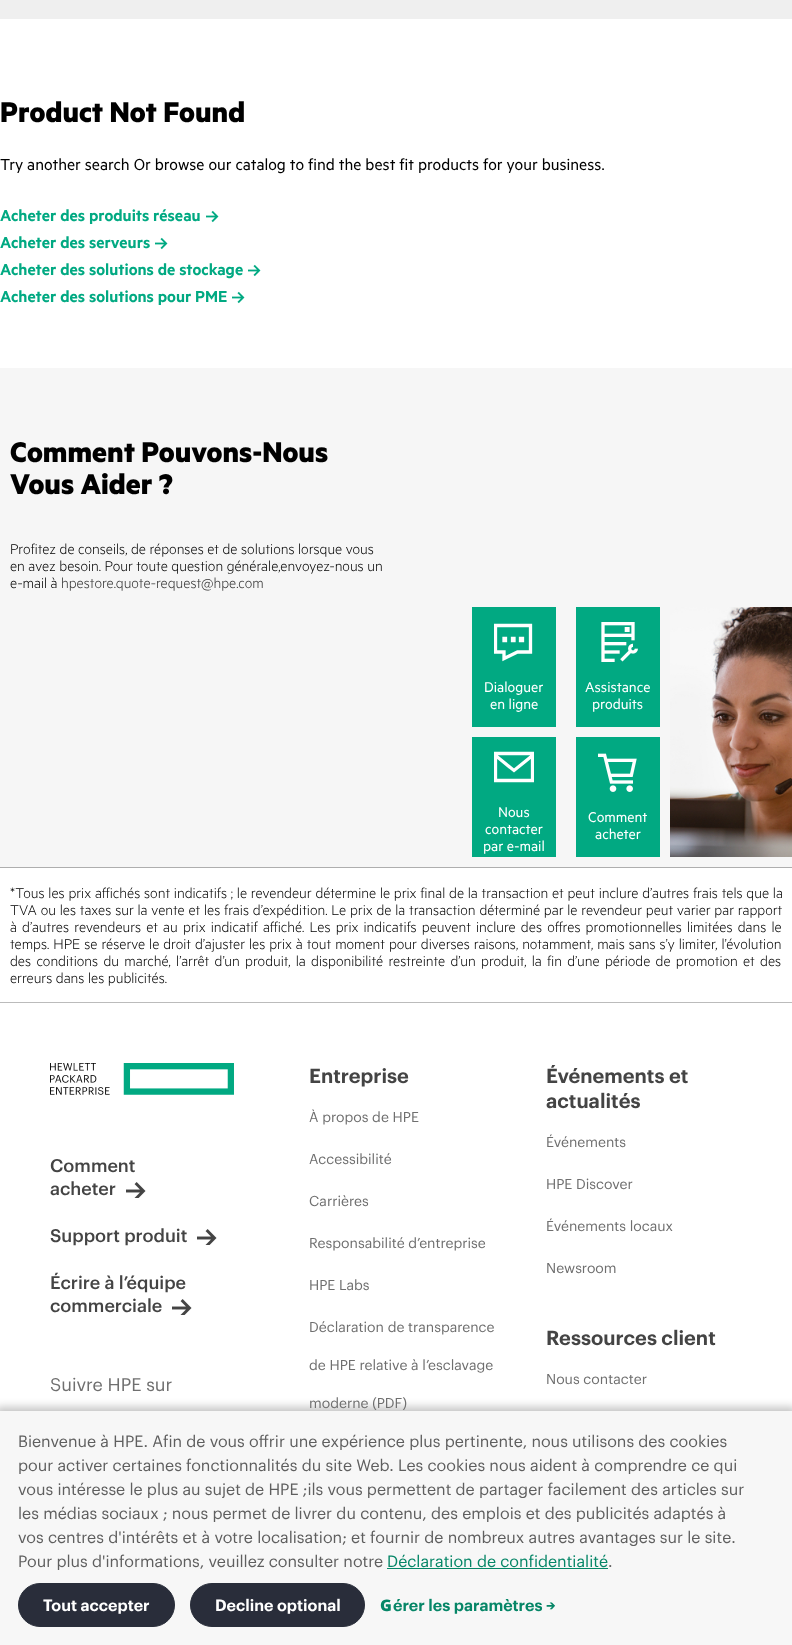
<?xml version="1.0" encoding="UTF-8"?>
<svg xmlns="http://www.w3.org/2000/svg" xmlns:xlink="http://www.w3.org/1999/xlink" width="792" height="1645">
  <defs>
    <clipPath id="clip1"><rect x="494" y="622" width="40" height="40" /></clipPath>
    <clipPath id="clip2"><rect x="494" y="747" width="40" height="40" /></clipPath>
  </defs>
  <rect width="100%" height="100%" fill="#ffffff" />
  <rect width="792" height="19" fill="#efefef" />
  <image x="206" y="210" width="13" height="13" xlink:href="image1.png" />
  <image x="155" y="237" width="13" height="13" xlink:href="image1.png" />
  <image x="248" y="264" width="13" height="13" xlink:href="image1.png" />
  <image x="232" y="291" width="13" height="13" xlink:href="image1.png" />
  <rect y="368" width="792" height="499" fill="#f6f6f6" />
  <rect x="472" y="607" width="84" height="120" fill="#01a982" />
  <g clip-path="url(#clip1)">
    <path d="M 495.5 625.5 h 35 v 26.5 h -13 l -13.5 6.5 v -6.5 h -8.5 z m 8.5 13 h 1.5 v 2 h -1.5 z m 8.5 0 h 1.5 v 2 h -1.5 z m 8 0 h 2 v 2 h -2 z" fill="none" stroke="#ffffff" stroke-width="3.3" />
  </g>
  <rect x="576" y="607" width="84" height="120" fill="#01a982" />
  <image x="601" y="622" width="37" height="40" xlink:href="image2.png" />
  <rect x="472" y="737" width="84" height="120" fill="#01a982" />
  <g clip-path="url(#clip2)">
    <path d="M 495.5 755.5 l 18.5 15 l 18.5 -15 m -37 25 h 37 v -27 h -37 z" fill="none" stroke="#ffffff" stroke-width="3.3" />
  </g>
  <rect x="576" y="737" width="84" height="120" fill="#01a982" />
  <image x="598" y="753" width="39" height="39" xlink:href="image3.png" />
  <image x="670" y="607" width="122" height="250" xlink:href="image4.png" />
  <rect y="867" width="792" height="1" fill="#aeaeae" />
  <rect y="1002" width="792" height="1" fill="#bbbbbb" />
  <image x="50" y="1063" width="184" height="32" xlink:href="image5.png" />
  <image x="126" y="1182" width="20" height="16" xlink:href="image6.png" />
  <image x="197" y="1229" width="20" height="16" xlink:href="image6.png" />
  <image x="172" y="1299" width="20" height="16" xlink:href="image6.png" />
  <rect x="-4" y="1407" width="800" height="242" fill="#000000" fill-opacity="0.23" filter="blur(4px)" />
  <rect y="1411" width="792" height="234" fill="#f7f7f7" />
  <rect x="387" y="1568" width="221" height="1" fill="#068667" />
  <rect x="18.5" y="1583.5" width="156" height="43" rx="21.5" fill="#292d3a" stroke="#292e3a" />
  <rect x="190.5" y="1583.5" width="174" height="43" rx="21.5" fill="#292d3a" stroke="#292e3a" />
  <text x="0" y="122" style="font-family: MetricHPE; font-size: 32px; font-weight: bold; fill: #000000">Product Not Found</text>
  <text x="0" y="170" style="font-family: MetricHPE; font-size: 18px; fill: #000000">Try another search Or browse our catalog to find the best fit products for your business.</text>
  <text x="0" y="221" style="font-family: MetricHPE; font-size: 18px; font-weight: 600; fill: #01a982">Acheter des produits réseau</text>
  <text x="0" y="248" style="font-family: MetricHPE; font-size: 18px; font-weight: 600; fill: #01a982">Acheter des serveurs</text>
  <text x="0" y="275" style="font-family: MetricHPE; font-size: 18px; font-weight: 600; fill: #01a982">Acheter des solutions de stockage</text>
  <text x="0" y="302" style="font-family: MetricHPE; font-size: 18px; font-weight: 600; fill: #01a982">Acheter des solutions pour PME</text>
  <text x="10" y="462" style="font-family: MetricHPE; font-size: 32px; font-weight: bold; fill: #000000">Comment Pouvons-Nous</text>
  <text x="10" y="494" style="font-family: MetricHPE; font-size: 32px; font-weight: bold; fill: #000000">Vous Aider ?</text>
  <text x="10" y="554" style="font-family: MetricHPE; font-size: 16px; font-weight: 300; fill: #000000">Profitez de conseils, de réponses et de solutions lorsque vous</text>
  <text x="10" y="571" style="font-family: MetricHPE; font-size: 16px; font-weight: 300; fill: #000000">en avez besoin. Pour toute question générale,envoyez-nous un</text>
  <text x="10" y="588" style="font-family: MetricHPE; font-size: 16px; font-weight: 300; fill: #000000">e-mail à</text>
  <text x="61" y="588" style="font-family: MetricHPE; font-size: 16px; font-weight: 300; fill: #333333">hpestore.quote-request@hpe.com</text>
  <text x="484" y="692" style="font-family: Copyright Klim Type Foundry; font-size: 16px; fill: #ffffff">Dialoguer</text>
  <text x="490" y="709" style="font-family: Copyright Klim Type Foundry; font-size: 16px; fill: #ffffff">en ligne</text>
  <text x="585" y="692" style="font-family: Copyright Klim Type Foundry; font-size: 16px; fill: #ffffff">Assistance</text>
  <text x="592" y="709" style="font-family: Copyright Klim Type Foundry; font-size: 16px; fill: #ffffff">produits</text>
  <text x="498" y="817" style="font-family: Copyright Klim Type Foundry; font-size: 16px; fill: #ffffff">Nous</text>
  <text x="485" y="834" style="font-family: Copyright Klim Type Foundry; font-size: 16px; fill: #ffffff">contacter</text>
  <text x="483" y="851" style="font-family: Copyright Klim Type Foundry; font-size: 16px; fill: #ffffff">par e-mail</text>
  <text x="588" y="822" style="font-family: Copyright Klim Type Foundry; font-size: 16px; fill: #ffffff">Comment</text>
  <text x="595" y="839" style="font-family: Copyright Klim Type Foundry; font-size: 16px; fill: #ffffff">acheter</text>
  <text x="10" y="898" word-spacing="0.25" style="font-family: MetricHPE; font-size: 16px; font-weight: 300; fill: #000000">*Tous les prix affichés sont indicatifs ; le revendeur détermine le prix final de la transaction et peut inclure d’autres frais tels que la</text>
  <text x="10" y="915" word-spacing="0.25" style="font-family: MetricHPE; font-size: 16px; font-weight: 300; fill: #000000">TVA ou les taxes sur la vente et les frais d’expédition. Le prix de la transaction déterminé par le revendeur peut varier par rapport</text>
  <text x="10" y="932" word-spacing="1.6" style="font-family: MetricHPE; font-size: 16px; font-weight: 300; fill: #000000">à d’autres revendeurs et au prix indicatif affiché. Les prix indicatifs peuvent inclure des offres promotionnelles limitées dans le</text>
  <text x="10" y="949" word-spacing="0.4" style="font-family: MetricHPE; font-size: 16px; font-weight: 300; fill: #000000">temps. HPE se réserve le droit d’ajuster les prix à tout moment pour diverses raisons, notamment, mais sans s’y limiter, l’évolution</text>
  <text x="10" y="966" word-spacing="1.75" style="font-family: MetricHPE; font-size: 16px; font-weight: 300; fill: #000000">des conditions du marché, l’arrêt d’un produit, la disponibilité restreinte d’un produit, la fin d’une période de promotion et des</text>
  <text x="10" y="983" style="font-family: MetricHPE; font-size: 16px; font-weight: 300; fill: #000000">erreurs dans les publicités.</text>
  <text x="50" y="1172" style="font-family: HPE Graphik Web; font-size: 18px; font-weight: 500; fill: #444444">Comment</text>
  <text x="50" y="1195" style="font-family: HPE Graphik Web; font-size: 18px; font-weight: 500; fill: #444444">acheter</text>
  <text x="50" y="1242" style="font-family: HPE Graphik Web; font-size: 18px; font-weight: 500; fill: #444444">Support produit</text>
  <text x="50" y="1289" style="font-family: HPE Graphik Web; font-size: 18px; font-weight: 500; fill: #444444">Écrire à l’équipe</text>
  <text x="50" y="1312" style="font-family: HPE Graphik Web; font-size: 18px; font-weight: 500; fill: #444444">commerciale</text>
  <text x="50" y="1391" style="font-family: HPE Graphik Web; font-size: 18px; fill: #6f6f6f">Suivre HPE sur</text>
  <text x="309" y="1083" style="font-family: HPE Graphik Web; font-size: 20px; font-weight: 600; fill: #444444">Entreprise</text>
  <text x="309" y="1122" style="font-family: HPE Graphik Web; font-size: 14px; fill: #6f6f6f">À propos de HPE</text>
  <text x="309" y="1164" style="font-family: HPE Graphik Web; font-size: 14px; fill: #6f6f6f">Accessibilité</text>
  <text x="309" y="1206" style="font-family: HPE Graphik Web; font-size: 14px; fill: #6f6f6f">Carrières</text>
  <text x="309" y="1248" style="font-family: HPE Graphik Web; font-size: 14px; fill: #6f6f6f">Responsabilité d’entreprise</text>
  <text x="309" y="1290" style="font-family: HPE Graphik Web; font-size: 14px; fill: #6f6f6f">HPE Labs</text>
  <text x="309" y="1332" style="font-family: HPE Graphik Web; font-size: 14px; fill: #6f6f6f">Déclaration de transparence</text>
  <text x="309" y="1370" style="font-family: HPE Graphik Web; font-size: 14px; fill: #6f6f6f">de HPE relative à l’esclavage</text>
  <text x="309" y="1408" style="font-family: HPE Graphik Web; font-size: 14px; fill: #6f6f6f">moderne (PDF)</text>
  <text x="546" y="1083" style="font-family: HPE Graphik Web; font-size: 20px; font-weight: 600; fill: #444444">Événements et</text>
  <text x="546" y="1108" style="font-family: HPE Graphik Web; font-size: 20px; font-weight: 600; fill: #444444">actualités</text>
  <text x="546" y="1147" style="font-family: HPE Graphik Web; font-size: 14px; fill: #6f6f6f">Événements</text>
  <text x="546" y="1189" style="font-family: HPE Graphik Web; font-size: 14px; fill: #6f6f6f">HPE Discover</text>
  <text x="546" y="1231" style="font-family: HPE Graphik Web; font-size: 14px; fill: #6f6f6f">Événements locaux</text>
  <text x="546" y="1273" style="font-family: HPE Graphik Web; font-size: 14px; fill: #6f6f6f">Newsroom</text>
  <text x="546" y="1345" style="font-family: HPE Graphik Web; font-size: 20px; font-weight: 600; fill: #444444">Ressources client</text>
  <text x="546" y="1384" style="font-family: HPE Graphik Web; font-size: 14px; fill: #6f6f6f">Nous contacter</text>
  <text x="18" y="1447" style="font-family: HPE Graphik Web; font-size: 16px; fill: #5f5f5f">Bienvenue à HPE. Afin de vous offrir une expérience plus pertinente, nous utilisons des cookies</text>
  <text x="18" y="1471" style="font-family: HPE Graphik Web; font-size: 16px; fill: #5f5f5f">pour activer certaines fonctionnalités du site Web. Les cookies nous aident à comprendre ce qui</text>
  <text x="18" y="1495" style="font-family: HPE Graphik Web; font-size: 16px; fill: #5f5f5f">vous intéresse le plus au sujet de HPE ;ils vous permettent de partager facilement des articles sur</text>
  <text x="18" y="1519" style="font-family: HPE Graphik Web; font-size: 16px; fill: #5f5f5f">les médias sociaux ; nous permet de livrer du contenu, des emplois et des publicités adaptés à</text>
  <text x="18" y="1543" style="font-family: HPE Graphik Web; font-size: 16px; fill: #5f5f5f">vos centres d'intérêts et à votre localisation; et fournir de nombreux autres avantages sur le site.</text>
  <text x="18" y="1567" style="font-family: HPE Graphik Web; font-size: 16px; fill: #5f5f5f">Pour plus d'informations, veuillez consulter notre</text>
  <text x="387" y="1567" style="font-family: HPE Graphik Web; font-size: 16px; fill: #068667">Déclaration de confidentialité</text>
  <text x="608" y="1567" style="font-family: HPE Graphik Web; font-size: 16px; fill: #5f5f5f">.</text>
  <text x="43" y="1611" style="font-family: HPE Graphik Web; font-size: 16px; font-weight: 600; fill: #ffffff">Tout accepter</text>
  <text x="215" y="1611" style="font-family: HPE Graphik Web; font-size: 16px; font-weight: 600; fill: #ffffff">Decline optional</text>
  <text x="380" y="1611" style="font-family: Noto Sans; font-size: 16px; font-weight: 900; fill: #068667">G</text>
  <text x="393" y="1611" style="font-family: HPE Graphik Web; font-size: 16px; font-weight: 600; fill: #068667">érer les paramètres →</text>
</svg>
